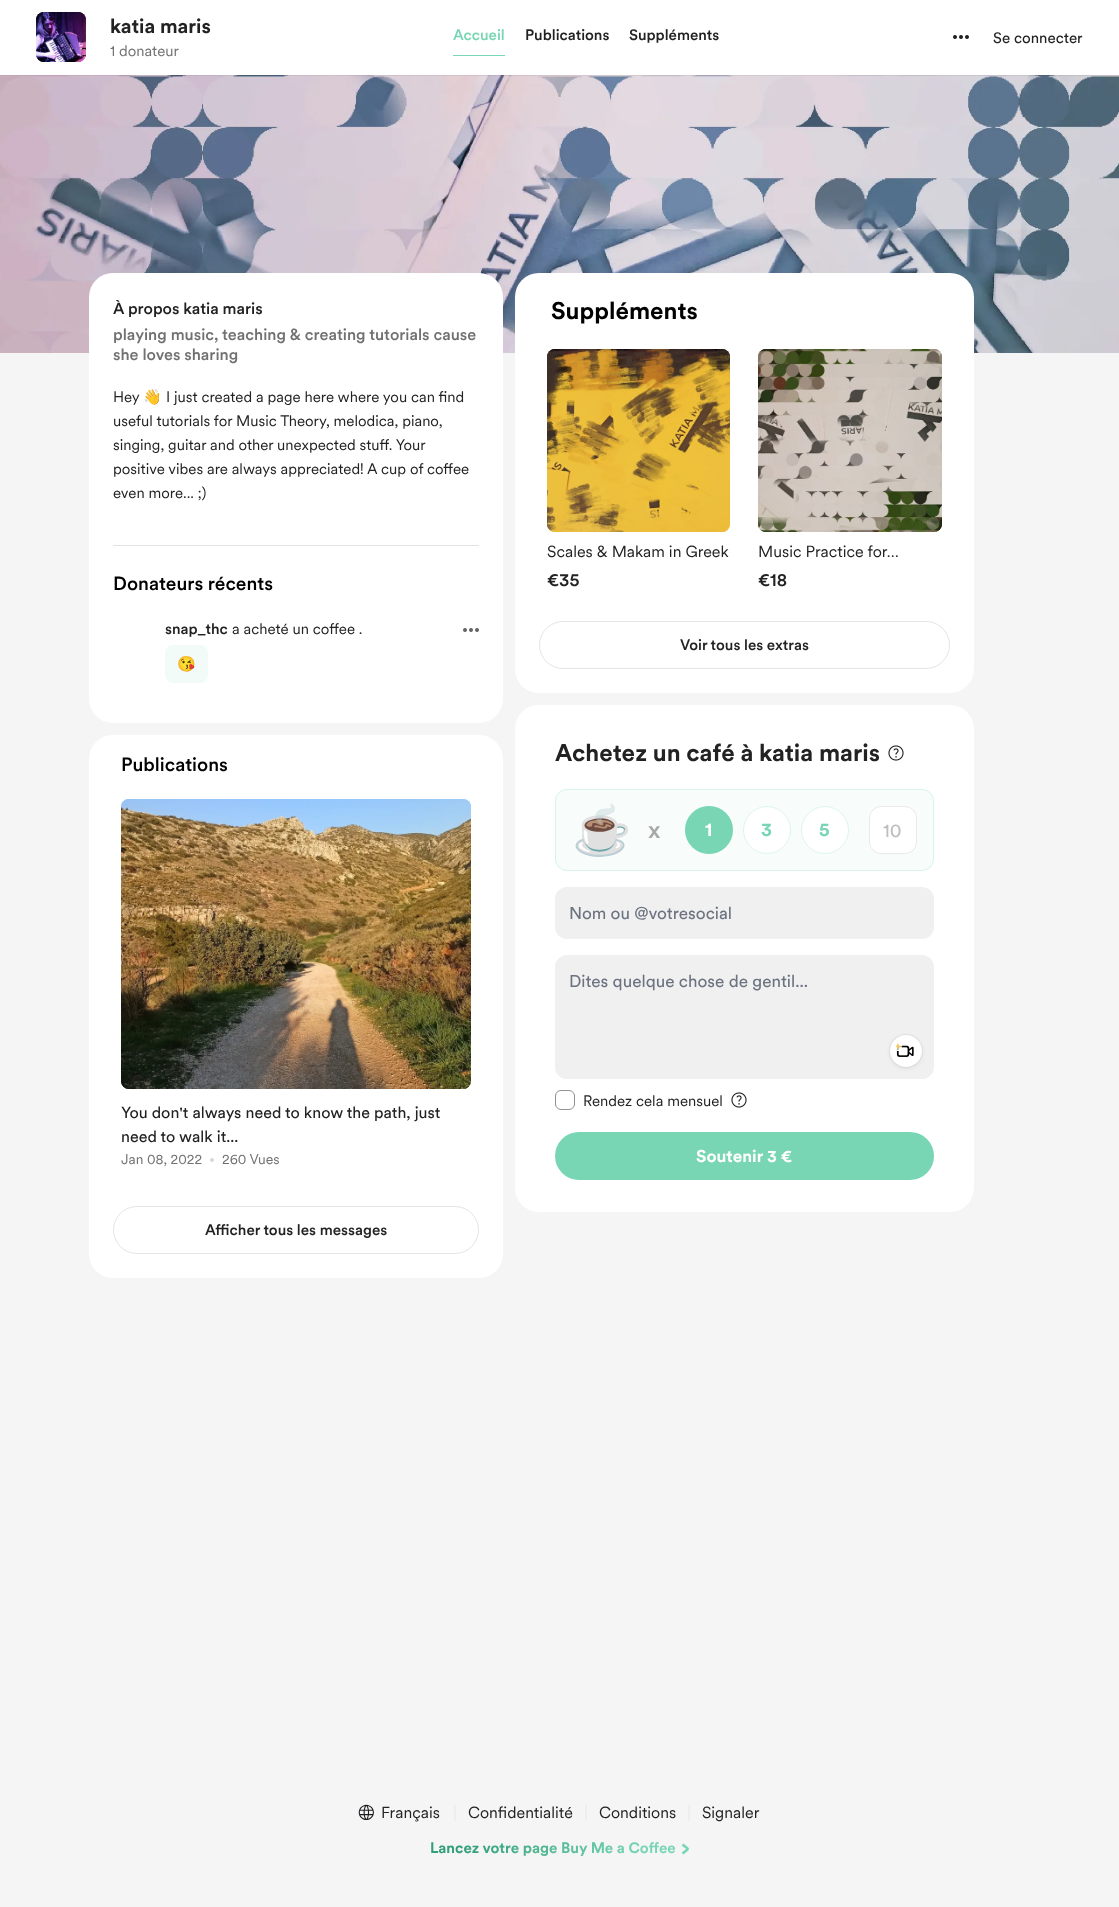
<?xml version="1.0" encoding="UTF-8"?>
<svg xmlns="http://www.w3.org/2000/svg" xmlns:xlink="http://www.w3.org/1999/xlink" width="1119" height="1907">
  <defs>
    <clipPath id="clip1"><rect x="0" y="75" width="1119" height="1" /></clipPath>
    <linearGradient id="g1" gradientUnits="userSpaceOnUse" x1="445" y1="1799" x2="674" y2="1896"><stop offset="0.14" stop-color="#319f78" /><stop offset="0.82" stop-color="#79d6b5" /></linearGradient>
  </defs>
  <rect width="100%" height="100%" fill="#ffffff" />
  <image x="0" y="75" width="1119" height="278" xlink:href="image4.png" />
  <g clip-path="url(#clip1)">
    <rect y="1" width="1119" height="75" fill="#000000" fill-opacity="0.06" filter="blur(0.5px)" />
  </g>
  <image x="36" y="12" width="50" height="50" xlink:href="image1.png" />
  <image x="36" y="12" width="50" height="50" xlink:href="image2.png" />
  <rect x="453" y="55" width="52" height="1" fill="#79d6b5" />
  <image x="953" y="35" width="16" height="4" xlink:href="image3.png" />
  <rect y="353" width="1119" height="1554" fill="#f5f5f5" />
  <rect x="89" y="273" width="414" height="450" rx="24" fill="#ffffff" />
  <rect x="113" y="545" width="366" height="1" fill="#e4e4e4" />
  <rect x="165" y="645" width="43" height="38" rx="8" fill="#f2fbf8" />
  <image x="463" y="628" width="16" height="4" xlink:href="image5.png" />
  <rect x="89" y="735" width="414" height="543" rx="24" fill="#ffffff" />
  <image x="121" y="799" width="350" height="290" xlink:href="image6.png" />
  <image x="121" y="799" width="350" height="290" xlink:href="image7.png" />
  <circle cx="212" cy="1160" r="2" fill="#d9d9d9" />
  <rect x="113.5" y="1206.5" width="365" height="47" rx="23.5" fill="none" stroke="#e5e5e5" />
  <rect x="515" y="273" width="459" height="420" rx="24" fill="#ffffff" />
  <image x="547" y="349" width="183" height="183" xlink:href="image8.png" />
  <image x="547" y="349" width="183" height="183" xlink:href="image9.png" />
  <image x="758" y="349" width="184" height="183" xlink:href="image10.png" />
  <image x="758" y="349" width="184" height="183" xlink:href="image11.png" />
  <rect x="539.5" y="621.5" width="410" height="47" rx="23.5" fill="none" stroke="#e5e5e5" />
  <rect x="515" y="705" width="459" height="507" rx="24" fill="#ffffff" />
  <image x="888" y="745" width="16" height="16" xlink:href="image12.png" />
  <rect x="555" y="789" width="379" height="82" rx="12" fill="#f8fdfb" />
  <rect x="555.5" y="789.5" width="378" height="81" rx="11.5" fill="none" stroke="#79d6b5" stroke-opacity="0.25" />
  <circle cx="709" cy="830" r="24" fill="#79d6b5" />
  <circle cx="709" cy="830" r="23.5" fill="none" stroke="#79d6b5" stroke-opacity="0.25" />
  <circle cx="767" cy="830" r="24" fill="#ffffff" />
  <circle cx="767" cy="830" r="23.5" fill="none" stroke="#79d6b5" stroke-opacity="0.25" />
  <circle cx="825" cy="830" r="24" fill="#ffffff" />
  <circle cx="825" cy="830" r="23.5" fill="none" stroke="#79d6b5" stroke-opacity="0.25" />
  <rect x="869" y="806" width="48" height="48" rx="12" fill="#ffffff" />
  <rect x="869.5" y="806.5" width="47" height="47" rx="11.5" fill="none" stroke="#222222" stroke-opacity="0.1" />
  <rect x="555" y="887" width="379" height="52" rx="12" fill="#f0f0f0" />
  <rect x="555" y="955" width="379" height="124" rx="12" fill="#f0f0f0" />
  <rect x="890" y="1037" width="32" height="32" rx="16" fill="#000000" fill-opacity="0.05" filter="blur(2.5px)" />
  <rect x="890" y="1035" width="32" height="32" rx="16" fill="#000000" fill-opacity="0.15" filter="blur(1px)" />
  <circle cx="906" cy="1051" r="16" fill="#ffffff" />
  <image x="896" y="1045" width="18" height="12" xlink:href="image14.png" />
  <image x="896" y="1043" width="6" height="8" xlink:href="image13.png" />
  <rect x="555.5" y="1090.5" width="19" height="19" rx="5.5" fill="none" stroke="#919191" />
  <image x="731" y="1092" width="16" height="16" xlink:href="image12.png" />
  <rect x="555" y="1132" width="379" height="48" rx="24" fill="#79d6b5" />
  <image x="358" y="1804" width="16" height="16" xlink:href="image15.png" />
  <path d="M 455 1805 v 16" fill="none" stroke="#e7e7e7" />
  <path d="M 586 1805 v 16" fill="none" stroke="#e7e7e7" />
  <path d="M 689 1805 v 16" fill="none" stroke="#e7e7e7" />
  <path d="M 682.5 1844.5 c 7 6 7 3 0 9" fill="none" stroke="#79d6b5" stroke-width="2.7" />
  <text x="110" y="33" style="font-family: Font; font-size: 20px; font-weight: bold; fill: #222222">katia maris</text>
  <text x="110" y="56" style="font-family: 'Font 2'; font-size: 15px; fill: #717171">1 donateur</text>
  <text x="453" y="40" style="font-family: Font; font-size: 15px; font-weight: 500; fill: #79d6b5">Accueil</text>
  <text x="525" y="40" style="font-family: Font; font-size: 15px; font-weight: 500; fill: #222222">Publications</text>
  <text x="629" y="40" style="font-family: Font; font-size: 15px; font-weight: 500; fill: #222222">Suppléments</text>
  <text x="993" y="43" style="font-family: Font; font-size: 15px; fill: #222222">Se connecter</text>
  <text x="113" y="314" style="font-family: Font; font-size: 16px; font-weight: 500; fill: #222222">À propos katia maris</text>
  <text x="113" y="340" style="font-family: Font; font-size: 16px; font-weight: 500; fill: #717171">playing music, teaching &amp; creating tutorials cause</text>
  <text x="113" y="360" style="font-family: Font; font-size: 16px; font-weight: 500; fill: #717171">she loves sharing</text>
  <text x="113" y="402" style="font-family: 'Font 2'; font-size: 15px; fill: #222222">Hey</text>
  <text x="143" y="402" style="font-family: Noto Color Emoji; font-size: 15px; fill: #222222">👋</text>
  <text x="166" y="402" style="font-family: 'Font 2'; font-size: 15px; fill: #222222">I just created a page here where you can find</text>
  <text x="113" y="426" style="font-family: 'Font 2'; font-size: 15px; fill: #222222">useful tutorials for Music Theory, melodica, piano,</text>
  <text x="113" y="450" style="font-family: 'Font 2'; font-size: 15px; fill: #222222">singing, guitar and other unexpected stuff. Your</text>
  <text x="113" y="474" style="font-family: 'Font 2'; font-size: 15px; fill: #222222">positive vibes are always appreciated! A cup of coffee</text>
  <text x="113" y="498" style="font-family: 'Font 2'; font-size: 15px; fill: #222222">even more... ;)</text>
  <text x="113" y="590" style="font-family: Font; font-size: 19px; font-weight: 500; fill: #000000">Donateurs récents</text>
  <text x="165" y="634" style="font-family: Font; font-size: 15px; font-weight: 500; fill: #222222">snap_thc</text>
  <text x="232" y="634" style="font-family: 'Font 2'; font-size: 15px; fill: #222222">a acheté un coffee .</text>
  <text x="177" y="669" style="font-family: Noto Color Emoji; font-size: 15px; fill: #222222">😘</text>
  <text x="121" y="771" style="font-family: Font; font-size: 19px; font-weight: 500; fill: #000000">Publications</text>
  <text x="121" y="1118" style="font-family: Font; font-size: 16px; fill: #222222">You don't always need to know the path, just</text>
  <text x="121" y="1142" style="font-family: Font; font-size: 16px; fill: #222222">need to walk it...</text>
  <text x="121" y="1164" style="font-family: 'Font 2'; font-size: 14px; fill: #717171">Jan 08, 2022</text>
  <text x="222" y="1164" style="font-family: 'Font 2'; font-size: 14px; fill: #717171">260 Vues</text>
  <text x="205" y="1235" style="font-family: Font; font-size: 15px; font-weight: 500; fill: #222222">Afficher tous les messages</text>
  <text x="551" y="319" style="font-family: Font; font-size: 24px; font-weight: bold; fill: #000000">Suppléments</text>
  <text x="547" y="557" style="font-family: 'Font 2'; font-size: 16px; fill: #222222">Scales &amp; Makam in Greek</text>
  <text x="547" y="586" style="font-family: Font; font-size: 18px; font-weight: 500; fill: #222222">€35</text>
  <text x="758" y="557" style="font-family: 'Font 2'; font-size: 16px; fill: #222222">Music Practice for…</text>
  <text x="758" y="586" style="font-family: Font; font-size: 18px; font-weight: 500; fill: #222222">€18</text>
  <text x="680" y="650" style="font-family: Font; font-size: 15px; font-weight: 500; fill: #222222">Voir tous les extras</text>
  <text x="555" y="761" style="font-family: Font; font-size: 24px; font-weight: bold; fill: #222222">Achetez un café à katia maris</text>
  <text x="572" y="847" style="font-family: Noto Color Emoji; font-size: 48px; fill: #000000">☕</text>
  <text x="648" y="838" style="font-family: Font; font-size: 24px; font-weight: 500; fill: #a7a9a8">x</text>
  <text x="705" y="836" style="font-family: Font; font-size: 19px; font-weight: bold; fill: #ffffff">1</text>
  <text x="761" y="836" style="font-family: Font; font-size: 19px; font-weight: bold; fill: #79d6b5">3</text>
  <text x="819" y="836" style="font-family: Font; font-size: 19px; font-weight: bold; fill: #79d6b5">5</text>
  <text x="883" y="837" style="font-family: Font; font-size: 19px; fill: #bdbdbd">10</text>
  <text x="569" y="919" style="font-family: Font; font-size: 17px; fill: #6b7280">Nom ou @votresocial</text>
  <text x="569" y="987" style="font-family: Font; font-size: 17px; fill: #6b7280">Dites quelque chose de gentil...</text>
  <text x="583" y="1106" style="font-family: 'Font 2'; font-size: 15px; fill: #222222">Rendez cela mensuel</text>
  <text x="696" y="1162" style="font-family: Font; font-size: 17px; font-weight: bold; fill: #ffffff">Soutenir 3 €</text>
  <text x="381" y="1818" style="font-family: 'Font 2'; font-size: 16px; fill: #222222">Français</text>
  <text x="468" y="1818" style="font-family: 'Font 2'; font-size: 16px; fill: #222222">Confidentialité</text>
  <text x="599" y="1818" style="font-family: 'Font 2'; font-size: 16px; fill: #222222">Conditions</text>
  <text x="702" y="1818" style="font-family: 'Font 2'; font-size: 16px; fill: #222222">Signaler</text>
  <text x="430" y="1853" style="font-family: Font; font-size: 15px; font-weight: bold; fill: url(#g1)">Lancez votre page Buy Me a Coffee</text>
</svg>
